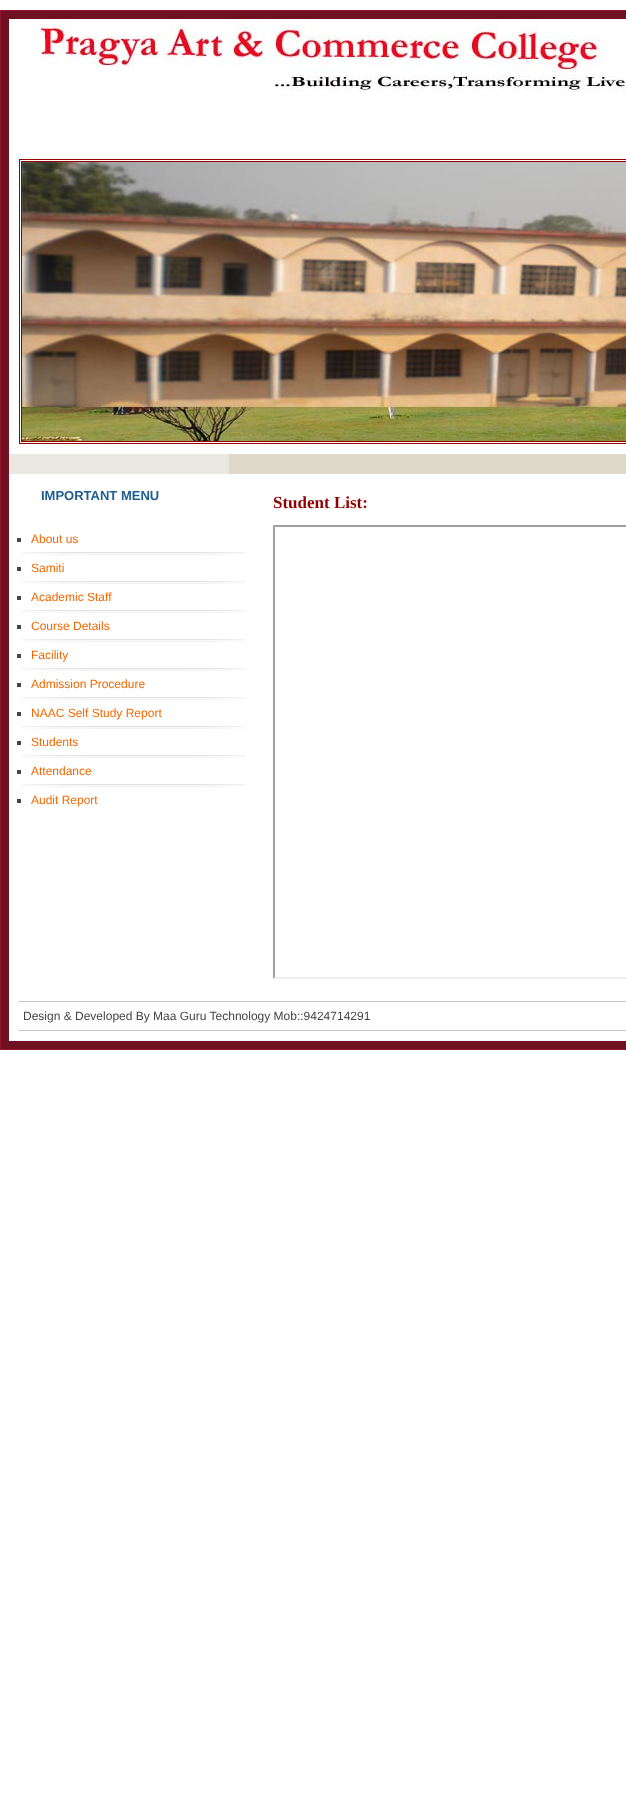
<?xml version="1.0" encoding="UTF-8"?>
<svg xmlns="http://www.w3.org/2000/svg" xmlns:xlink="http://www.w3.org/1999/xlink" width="626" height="1805">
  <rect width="100%" height="100%" fill="#ffffff" />
  <rect x="0.5" y="10.5" width="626" height="1039" fill="none" stroke="#93152c" />
  <rect x="5" y="15" width="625" height="1030" fill="none" stroke="#6f1121" stroke-width="8" />
  <image x="40" y="19" width="586" height="72" xlink:href="image1.png" />
  <rect x="19.5" y="159.5" width="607" height="284" fill="none" stroke="#920000" />
  <rect x="21.5" y="161.5" width="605" height="280" fill="none" stroke="#920000" />
  <image x="22" y="162" width="604" height="279" xlink:href="image2.png" />
  <rect x="9" y="454" width="220" height="20" fill="#ebe8e1" />
  <rect x="229" y="454" width="397" height="20" fill="#dfd9cc" />
  <rect x="17" y="538" width="4" height="4" fill="#454545" />
  <image x="21" y="552" width="225" height="3" xlink:href="image3.png" />
  <rect x="17" y="567" width="4" height="4" fill="#454545" />
  <image x="21" y="581" width="225" height="3" xlink:href="image3.png" />
  <rect x="17" y="596" width="4" height="4" fill="#454545" />
  <image x="21" y="610" width="225" height="3" xlink:href="image3.png" />
  <rect x="17" y="625" width="4" height="4" fill="#454545" />
  <image x="21" y="639" width="225" height="3" xlink:href="image3.png" />
  <rect x="17" y="654" width="4" height="4" fill="#454545" />
  <image x="21" y="668" width="225" height="3" xlink:href="image3.png" />
  <rect x="17" y="683" width="4" height="4" fill="#454545" />
  <image x="21" y="697" width="225" height="3" xlink:href="image3.png" />
  <rect x="17" y="712" width="4" height="4" fill="#454545" />
  <image x="21" y="726" width="225" height="3" xlink:href="image3.png" />
  <rect x="17" y="741" width="4" height="4" fill="#454545" />
  <image x="21" y="755" width="225" height="3" xlink:href="image3.png" />
  <rect x="17" y="770" width="4" height="4" fill="#454545" />
  <image x="21" y="784" width="225" height="3" xlink:href="image3.png" />
  <rect x="17" y="799" width="4" height="4" fill="#454545" />
  <path d="M 273 525 h 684 l -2 2 h -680 z" fill="#9f9f9f" />
  <path d="M 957 979 h -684 l 2 -2 h 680 z" fill="#eeeeee" />
  <path d="M 273 979 v -454 l 2 2 v 450 z" fill="#9f9f9f" />
  <rect x="19" y="1001" width="607" height="1" fill="#c4c4c4" />
  <rect x="19" y="1030" width="607" height="1" fill="#c4c4c4" />
  <text x="41" y="500" style="font-family: Liberation Sans; font-size: 13px; font-weight: bold; fill: #1d5e92">IMPORTANT MENU</text>
  <text x="31" y="543" style="font-family: Liberation Sans; font-size: 12px; fill: #f36801">About us</text>
  <text x="31" y="572" style="font-family: Liberation Sans; font-size: 12px; fill: #f36801">Samiti</text>
  <text x="31" y="601" style="font-family: Liberation Sans; font-size: 12px; fill: #f36801">Academic Staff</text>
  <text x="31" y="630" style="font-family: Liberation Sans; font-size: 12px; fill: #f36801">Course Details</text>
  <text x="31" y="659" style="font-family: Liberation Sans; font-size: 12px; fill: #f36801">Facility</text>
  <text x="31" y="688" style="font-family: Liberation Sans; font-size: 12px; fill: #f36801">Admission Procedure</text>
  <text x="31" y="717" style="font-family: Liberation Sans; font-size: 12px; fill: #f36801">NAAC Self Study Report</text>
  <text x="31" y="746" style="font-family: Liberation Sans; font-size: 12px; fill: #f36801">Students</text>
  <text x="31" y="775" style="font-family: Liberation Sans; font-size: 12px; fill: #f36801">Attendance</text>
  <text x="31" y="804" style="font-family: Liberation Sans; font-size: 12px; fill: #f36801">Audit Report</text>
  <text x="273" y="508" style="font-family: Liberation Serif; font-size: 17px; font-weight: bold; fill: #920000">Student List:</text>
  <text x="23" y="1020" style="font-family: Liberation Sans; font-size: 12px; fill: #454545">Design &amp; Developed By Maa Guru Technology Mob::9424714291</text>
</svg>
